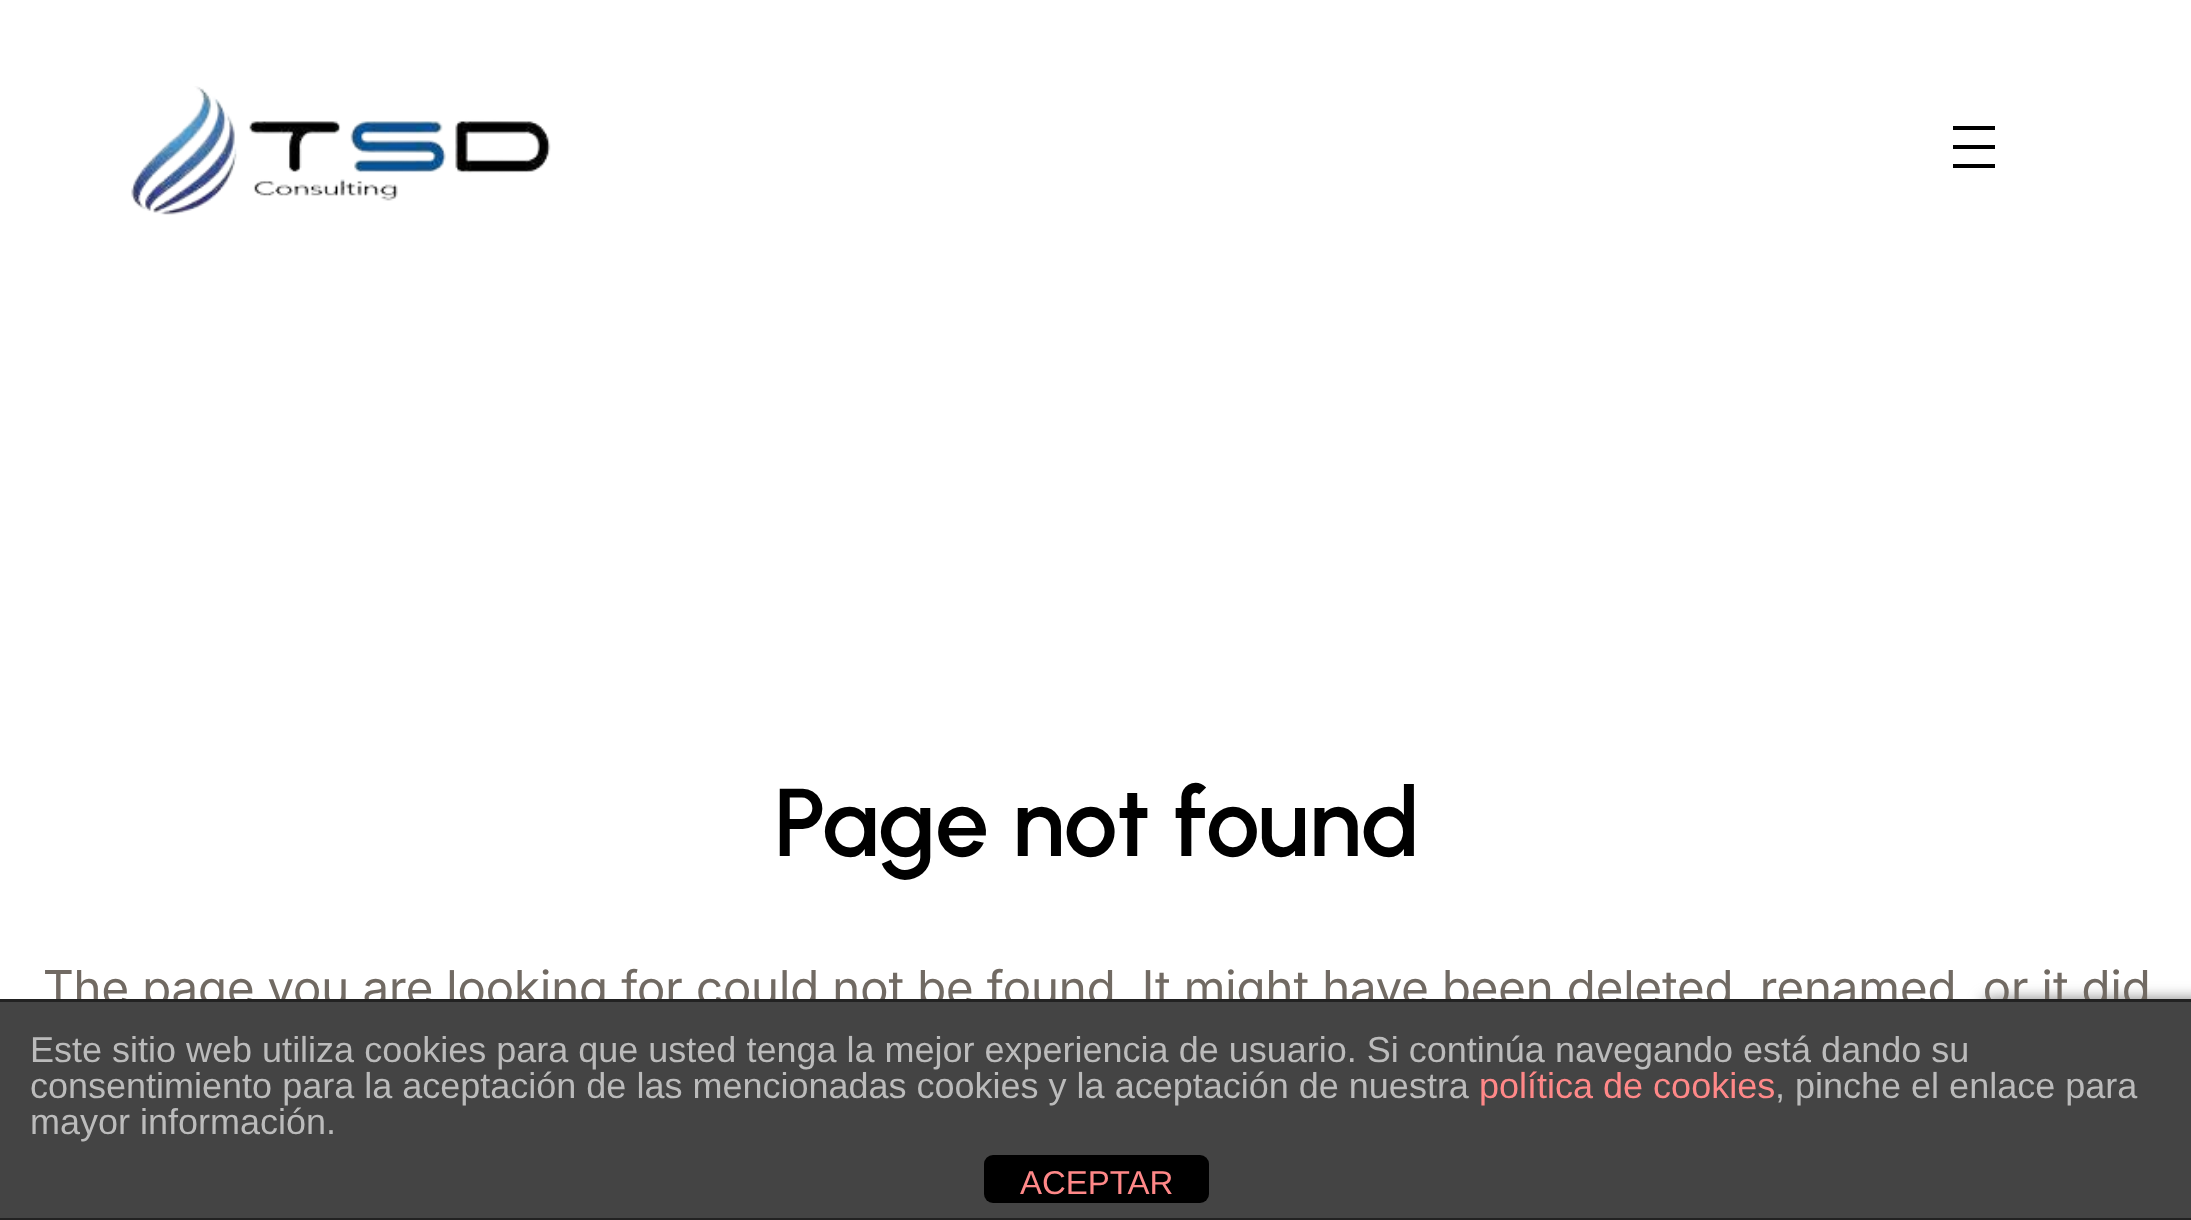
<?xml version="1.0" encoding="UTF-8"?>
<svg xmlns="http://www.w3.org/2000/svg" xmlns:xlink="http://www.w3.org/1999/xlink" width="2191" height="1220">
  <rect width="100%" height="100%" fill="#ffffff" />
  <image x="131" y="86" width="420" height="129" xlink:href="image1.png" />
  <rect x="1953" y="126" width="42" height="4" fill="#000000" />
  <rect x="1953" y="145" width="42" height="4" fill="#000000" />
  <rect x="1953" y="164" width="42" height="4" fill="#000000" />
  <rect x="1983" y="999" width="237" height="180" rx="6" fill="#808080" filter="blur(7.5px)" />
  <rect y="1218" width="2191" height="2" fill="#222222" />
  <text x="774" y="856" style="font-family: Urbanist; font-size: 96px; font-weight: 600; fill: #000000">Page not found</text>
  <text x="43" y="1005" style="font-family: Inter; font-size: 48px; fill: #716a63">The page you are looking for could not be found. It might have been deleted, renamed, or it did</text>
  <rect y="1002" width="2191" height="216" fill="#444444" />
  <rect y="999" width="2191" height="3" fill="#222222" />
  <text x="30" y="1062" style="font-family: Liberation Sans; font-size: 36px; fill: #bbbbbb">Este sitio web utiliza cookies para que usted tenga la mejor experiencia de usuario. Si continúa navegando está dando su</text>
  <text x="30" y="1098" style="font-family: Liberation Sans; font-size: 36px; fill: #bbbbbb">consentimiento para la aceptación de las mencionadas cookies y la aceptación de nuestra</text>
  <text x="1479" y="1098" style="font-family: Liberation Sans; font-size: 36px; fill: #ff8888">política de cookies</text>
  <text x="1775" y="1098" style="font-family: Liberation Sans; font-size: 36px; fill: #bbbbbb">, pinche el enlace para</text>
  <text x="30" y="1134" style="font-family: Liberation Sans; font-size: 36px; fill: #bbbbbb">mayor información.</text>
  <rect x="984" y="1155" width="225" height="48" rx="9" fill="#000000" />
  <text x="1020" y="1194" style="font-family: Liberation Sans; font-size: 33px; fill: #ff8888">ACEPTAR</text>
</svg>
